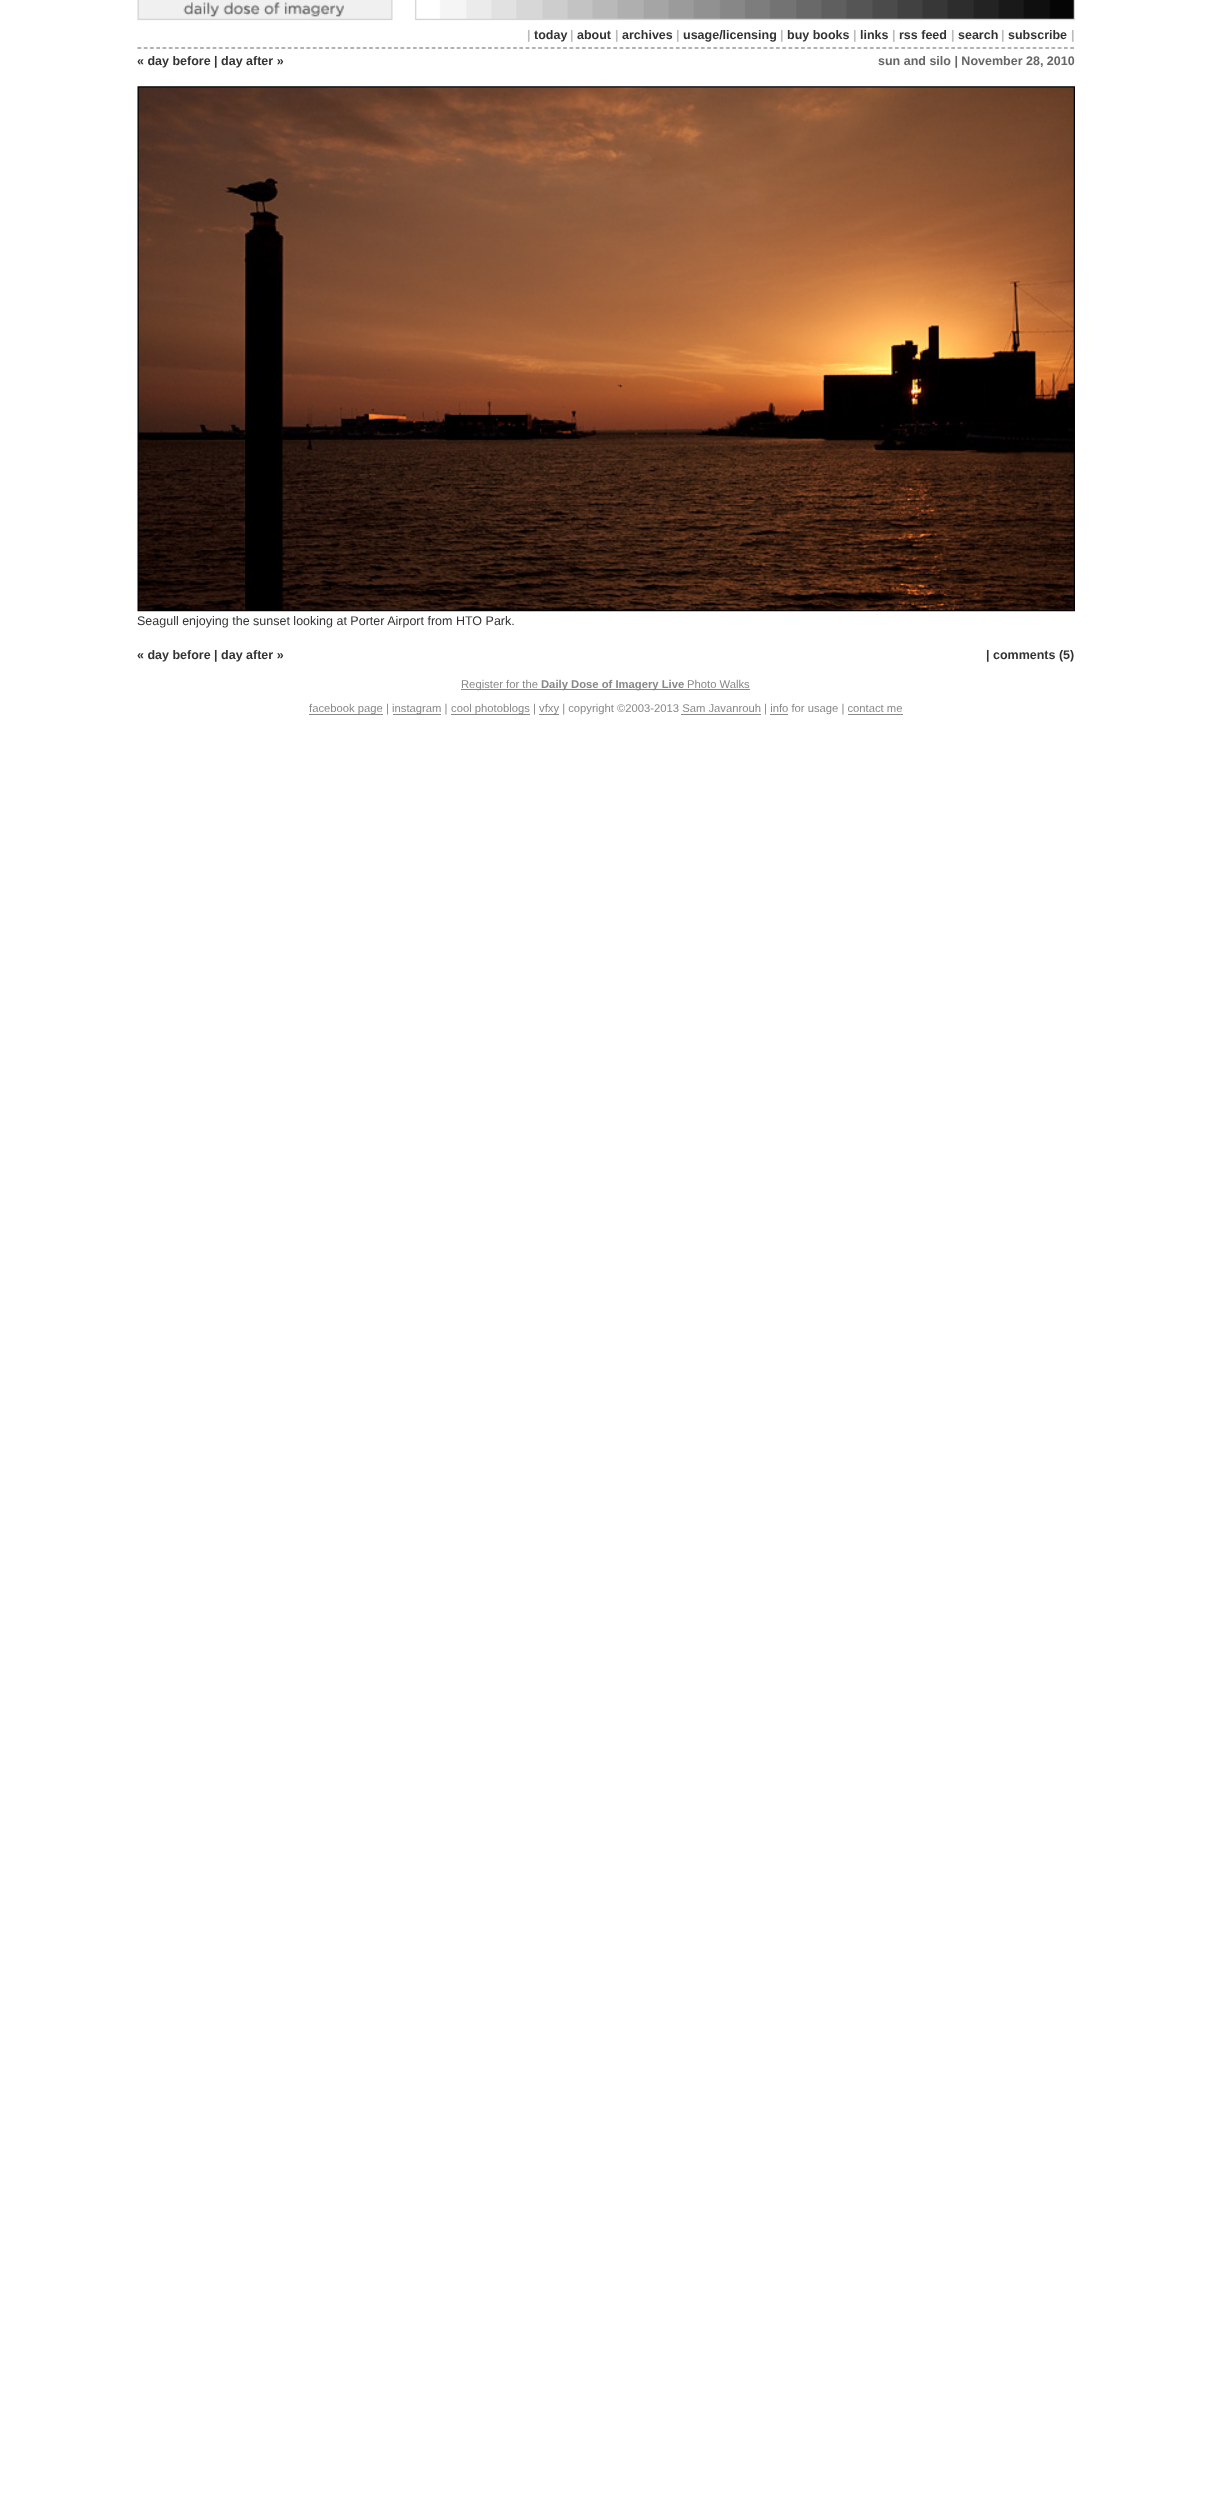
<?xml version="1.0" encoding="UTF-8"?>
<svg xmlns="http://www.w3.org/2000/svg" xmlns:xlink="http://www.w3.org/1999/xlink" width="1211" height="2508">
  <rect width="100%" height="100%" fill="#ffffff" />
  <image x="137" y="0" width="938" height="21" xlink:href="image1.png" />
  <path d="M 137.5 48 h 937.5" fill="none" stroke="#666666" stroke-width="1.2" stroke-dasharray="3.75 2.51" />
  <image x="137" y="86" width="938" height="526" xlink:href="image2.png" />
  <rect x="461" y="689" width="289" height="1" fill="#888888" />
  <rect x="309" y="714" width="74" height="1" fill="#888888" />
  <rect x="393" y="714" width="48" height="1" fill="#888888" />
  <rect x="451" y="714" width="79" height="1" fill="#888888" />
  <rect x="539" y="714" width="20" height="1" fill="#888888" />
  <rect x="681" y="714" width="80" height="1" fill="#888888" />
  <rect x="770" y="714" width="18" height="1" fill="#888888" />
  <rect x="848" y="714" width="55" height="1" fill="#888888" />
  <text x="527" y="39" style="font-family: Liberation Sans; font-size: 12.5px; font-weight: bold; fill: #bbbbbb">|</text>
  <text x="534" y="39" style="font-family: Liberation Sans; font-size: 12.5px; font-weight: bold; fill: #333333">today</text>
  <text x="570" y="39" style="font-family: Liberation Sans; font-size: 12.5px; font-weight: bold; fill: #bbbbbb">|</text>
  <text x="577" y="39" style="font-family: Liberation Sans; font-size: 12.5px; font-weight: bold; fill: #333333">about</text>
  <text x="615" y="39" style="font-family: Liberation Sans; font-size: 12.5px; font-weight: bold; fill: #bbbbbb">|</text>
  <text x="622" y="39" style="font-family: Liberation Sans; font-size: 12.5px; font-weight: bold; fill: #333333">archives</text>
  <text x="676" y="39" style="font-family: Liberation Sans; font-size: 12.5px; font-weight: bold; fill: #bbbbbb">|</text>
  <text x="683" y="39" style="font-family: Liberation Sans; font-size: 12.5px; font-weight: bold; fill: #333333">usage/licensing</text>
  <text x="780" y="39" style="font-family: Liberation Sans; font-size: 12.5px; font-weight: bold; fill: #bbbbbb">|</text>
  <text x="787" y="39" style="font-family: Liberation Sans; font-size: 12.5px; font-weight: bold; fill: #333333">buy books</text>
  <text x="853" y="39" style="font-family: Liberation Sans; font-size: 12.5px; font-weight: bold; fill: #bbbbbb">|</text>
  <text x="860" y="39" style="font-family: Liberation Sans; font-size: 12.5px; font-weight: bold; fill: #333333">links</text>
  <text x="892" y="39" style="font-family: Liberation Sans; font-size: 12.5px; font-weight: bold; fill: #bbbbbb">|</text>
  <text x="899" y="39" style="font-family: Liberation Sans; font-size: 12.5px; font-weight: bold; fill: #333333">rss feed</text>
  <text x="951" y="39" style="font-family: Liberation Sans; font-size: 12.5px; font-weight: bold; fill: #bbbbbb">|</text>
  <text x="958" y="39" style="font-family: Liberation Sans; font-size: 12.5px; font-weight: bold; fill: #333333">search</text>
  <text x="1001" y="39" style="font-family: Liberation Sans; font-size: 12.5px; font-weight: bold; fill: #bbbbbb">|</text>
  <text x="1008" y="39" style="font-family: Liberation Sans; font-size: 12.5px; font-weight: bold; fill: #333333">subscribe</text>
  <text x="1071" y="39" style="font-family: Liberation Sans; font-size: 12.5px; font-weight: bold; fill: #bbbbbb">|</text>
  <text x="137" y="65" style="font-family: Liberation Sans; font-size: 12.5px; font-weight: bold; fill: #333333">« day before | day after »</text>
  <text x="878" y="65" style="font-family: Liberation Sans; font-size: 12.5px; font-weight: bold; fill: #666666">sun and silo | November 28, 2010</text>
  <text x="137" y="625" style="font-family: Liberation Sans; font-size: 12.5px; fill: #333333">Seagull enjoying the sunset looking at Porter Airport from HTO Park.</text>
  <text x="137" y="659" style="font-family: Liberation Sans; font-size: 12.5px; font-weight: bold; fill: #333333">« day before | day after »</text>
  <text x="986" y="659" style="font-family: Liberation Sans; font-size: 12.5px; font-weight: bold; fill: #333333">| comments (5)</text>
  <text x="461" y="688" style="font-family: Liberation Sans; font-size: 11.25px; fill: #888888">Register for the</text>
  <text x="541" y="688" style="font-family: Liberation Sans; font-size: 11.25px; font-weight: bold; fill: #888888">Daily Dose of Imagery Live</text>
  <text x="687" y="688" style="font-family: Liberation Sans; font-size: 11.25px; fill: #888888">Photo Walks</text>
  <text x="309" y="712" style="font-family: Liberation Sans; font-size: 11.25px; fill: #888888">facebook page |</text>
  <text x="392" y="712" style="font-family: Liberation Sans; font-size: 11.25px; fill: #888888">instagram |</text>
  <text x="451" y="712" style="font-family: Liberation Sans; font-size: 11.25px; fill: #888888">cool photoblogs |</text>
  <text x="539" y="712" style="font-family: Liberation Sans; font-size: 11.25px; fill: #888888">vfxy | copyright ©2003-2013 Sam Javanrouh | info for usage | contact me</text>
</svg>
